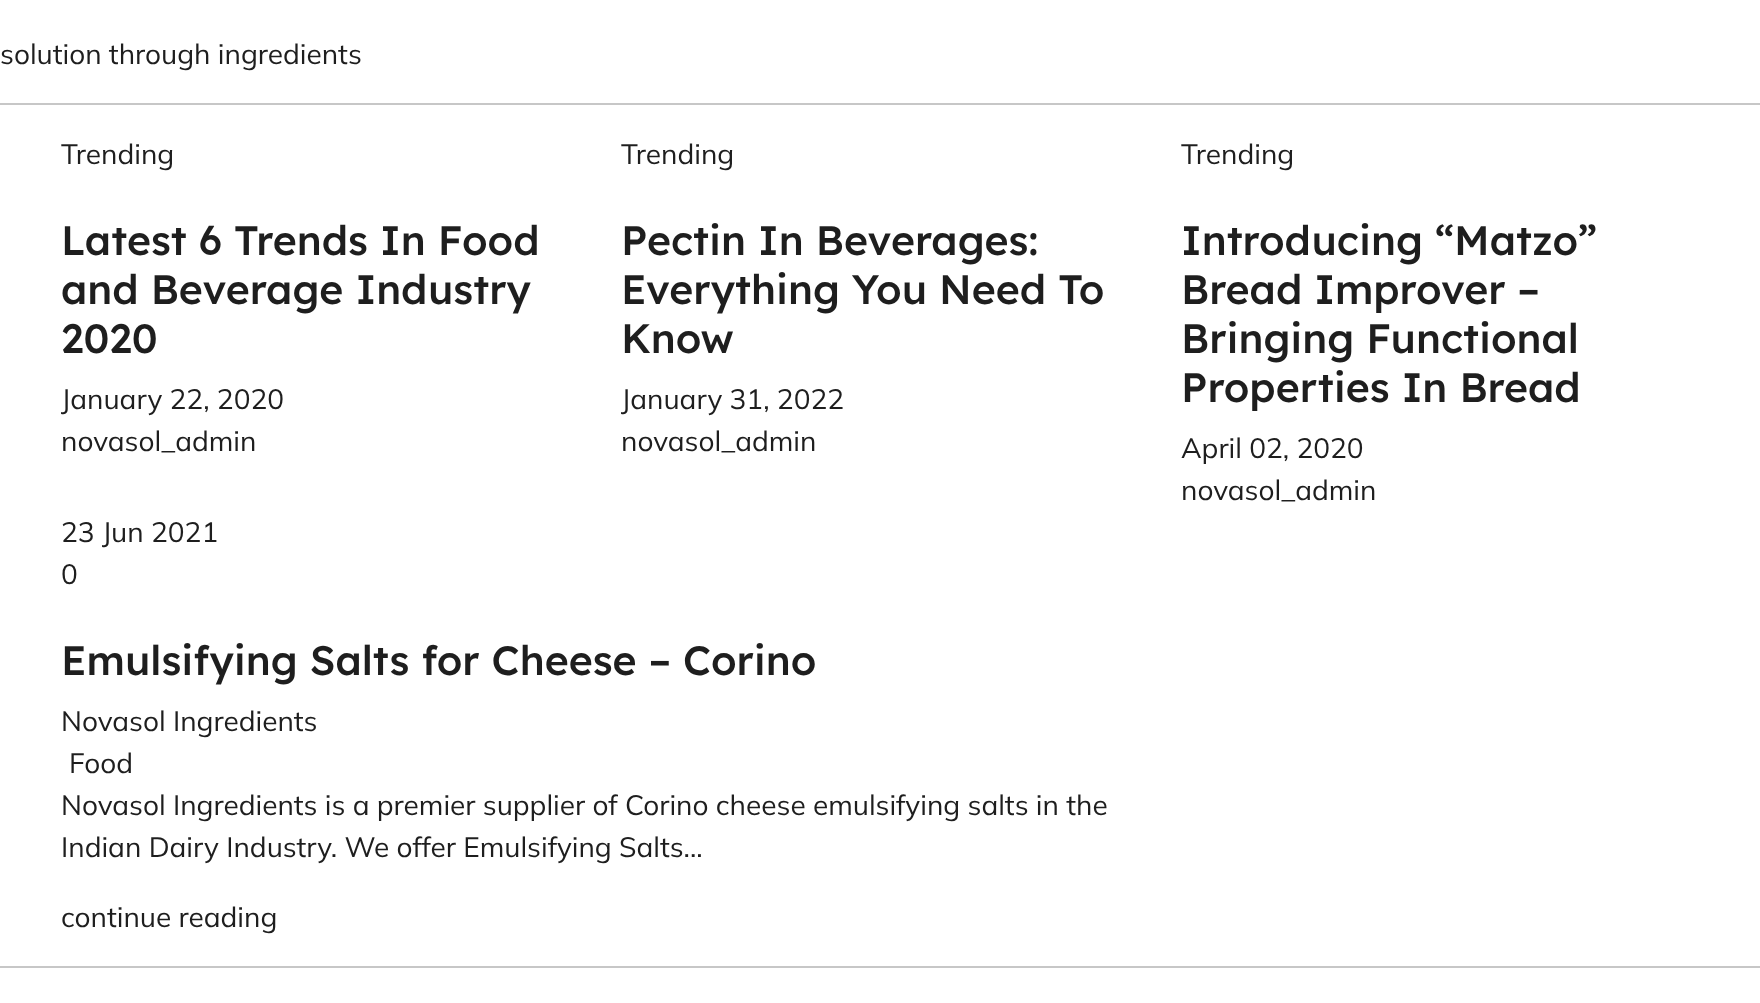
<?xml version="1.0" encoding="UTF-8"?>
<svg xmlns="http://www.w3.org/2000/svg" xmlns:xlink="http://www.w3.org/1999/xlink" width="1760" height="1003">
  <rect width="100%" height="100%" fill="#ffffff" />
  <rect y="103" width="1760" height="2" fill="#c7c7c7" />
  <rect y="966" width="1760" height="2" fill="#c7c7c7" />
  <text x="0" y="64" style="font-family: Mulish; font-size: 28px; fill: #1e1e1e">solution through ingredients</text>
  <text x="61" y="164" style="font-family: Mulish; font-size: 28px; fill: #1e1e1e">Trending</text>
  <text x="61" y="255" style="font-family: Lexend; font-size: 41px; font-weight: 500; fill: #1e1e1e">Latest 6 Trends In Food</text>
  <text x="61" y="304" style="font-family: Lexend; font-size: 41px; font-weight: 500; fill: #1e1e1e">and Beverage Industry</text>
  <text x="61" y="353" style="font-family: Lexend; font-size: 41px; font-weight: 500; fill: #1e1e1e">2020</text>
  <text x="61" y="409" style="font-family: Mulish; font-size: 28px; fill: #1e1e1e">January 22, 2020</text>
  <text x="61" y="451" style="font-family: Mulish; font-size: 28px; fill: #1e1e1e">novasol_admin</text>
  <text x="621" y="164" style="font-family: Mulish; font-size: 28px; fill: #1e1e1e">Trending</text>
  <text x="621" y="255" style="font-family: Lexend; font-size: 41px; font-weight: 500; fill: #1e1e1e">Pectin In Beverages:</text>
  <text x="621" y="304" style="font-family: Lexend; font-size: 41px; font-weight: 500; fill: #1e1e1e">Everything You Need To</text>
  <text x="621" y="353" style="font-family: Lexend; font-size: 41px; font-weight: 500; fill: #1e1e1e">Know</text>
  <text x="621" y="409" style="font-family: Mulish; font-size: 28px; fill: #1e1e1e">January 31, 2022</text>
  <text x="621" y="451" style="font-family: Mulish; font-size: 28px; fill: #1e1e1e">novasol_admin</text>
  <text x="1181" y="164" style="font-family: Mulish; font-size: 28px; fill: #1e1e1e">Trending</text>
  <text x="1181" y="255" style="font-family: Lexend; font-size: 41px; font-weight: 500; fill: #1e1e1e">Introducing “Matzo”</text>
  <text x="1181" y="304" style="font-family: Lexend; font-size: 41px; font-weight: 500; fill: #1e1e1e">Bread Improver –</text>
  <text x="1181" y="353" style="font-family: Lexend; font-size: 41px; font-weight: 500; fill: #1e1e1e">Bringing Functional</text>
  <text x="1181" y="402" style="font-family: Lexend; font-size: 41px; font-weight: 500; fill: #1e1e1e">Properties In Bread</text>
  <text x="1181" y="458" style="font-family: Mulish; font-size: 28px; fill: #1e1e1e">April 02, 2020</text>
  <text x="1181" y="500" style="font-family: Mulish; font-size: 28px; fill: #1e1e1e">novasol_admin</text>
  <text x="61" y="542" style="font-family: Mulish; font-size: 28px; fill: #1e1e1e">23 Jun 2021</text>
  <text x="61" y="584" style="font-family: Mulish; font-size: 28px; fill: #1e1e1e">0</text>
  <text x="61" y="675" style="font-family: Lexend; font-size: 41px; font-weight: 500; fill: #1e1e1e">Emulsifying Salts for Cheese – Corino</text>
  <text x="61" y="731" style="font-family: Mulish; font-size: 28px; fill: #1e1e1e">Novasol Ingredients</text>
  <text x="69" y="773" style="font-family: Mulish; font-size: 28px; fill: #1e1e1e">Food</text>
  <text x="61" y="815" style="font-family: Mulish; font-size: 28px; fill: #1e1e1e">Novasol Ingredients is a premier supplier of Corino cheese emulsifying salts in the</text>
  <text x="61" y="857" style="font-family: Mulish; font-size: 28px; fill: #1e1e1e">Indian Dairy Industry. We offer Emulsifying Salts...</text>
  <text x="61" y="927" style="font-family: Mulish; font-size: 28px; fill: #1e1e1e">continue reading</text>
</svg>
